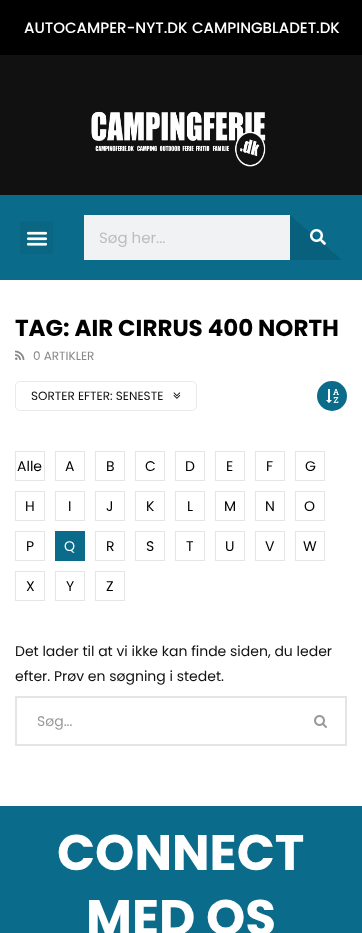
<?xml version="1.0" encoding="UTF-8"?>
<svg xmlns="http://www.w3.org/2000/svg" xmlns:xlink="http://www.w3.org/1999/xlink" width="362" height="933">
  <defs>
    <linearGradient id="g1" gradientUnits="userSpaceOnUse" x1="338" y1="212" x2="294" y2="263"><stop offset="0.5" stop-color="#0a6b8a" /><stop offset="0.5" stop-color="#09607c" /></linearGradient>
  </defs>
  <rect width="100%" height="100%" fill="#ffffff" />
  <rect width="362" height="55" fill="#000000" />
  <rect y="55" width="362" height="140" fill="#111111" />
  <image x="91" y="111" width="175" height="56" xlink:href="image1.png" />
  <rect y="195" width="362" height="85" fill="#0a6b8a" />
  <rect x="20" y="221" width="33" height="33" rx="3" fill="#0a6683" />
  <image x="26" y="231" width="22" height="15" xlink:href="image2.png" />
  <rect x="84" y="215" width="206" height="45" fill="#f1f2f3" />
  <rect x="290" y="215" width="52" height="45" fill="url(#g1)" />
  <image x="310" y="229" width="16" height="16" xlink:href="image3.png" />
  <image x="15" y="350" width="10" height="10" xlink:href="image4.png" />
  <rect x="15.5" y="381.5" width="181" height="29" rx="4.5" fill="none" stroke="#eaeaea" />
  <image x="173" y="392" width="8" height="7" xlink:href="image5.png" />
  <circle cx="332" cy="396" r="15" fill="#0a6b8a" />
  <image x="326" y="389" width="13" height="14" xlink:href="image6.png" />
  <rect x="15.5" y="451.5" width="29" height="29" fill="none" stroke="#e6e6e6" />
  <rect x="55.5" y="451.5" width="29" height="29" fill="none" stroke="#e6e6e6" />
  <rect x="95.5" y="451.5" width="29" height="29" fill="none" stroke="#e6e6e6" />
  <rect x="135.5" y="451.5" width="29" height="29" fill="none" stroke="#e6e6e6" />
  <rect x="175.5" y="451.5" width="29" height="29" fill="none" stroke="#e6e6e6" />
  <rect x="215.5" y="451.5" width="29" height="29" fill="none" stroke="#e6e6e6" />
  <rect x="255.5" y="451.5" width="29" height="29" fill="none" stroke="#e6e6e6" />
  <rect x="295.5" y="451.5" width="29" height="29" fill="none" stroke="#e6e6e6" />
  <rect x="15.5" y="491.5" width="29" height="29" fill="none" stroke="#e6e6e6" />
  <rect x="55.5" y="491.5" width="29" height="29" fill="none" stroke="#e6e6e6" />
  <rect x="95.5" y="491.5" width="29" height="29" fill="none" stroke="#e6e6e6" />
  <rect x="135.5" y="491.5" width="29" height="29" fill="none" stroke="#e6e6e6" />
  <rect x="175.5" y="491.5" width="29" height="29" fill="none" stroke="#e6e6e6" />
  <rect x="215.5" y="491.5" width="29" height="29" fill="none" stroke="#e6e6e6" />
  <rect x="255.5" y="491.5" width="29" height="29" fill="none" stroke="#e6e6e6" />
  <rect x="295.5" y="491.5" width="29" height="29" fill="none" stroke="#e6e6e6" />
  <rect x="15.5" y="531.5" width="29" height="29" fill="none" stroke="#e6e6e6" />
  <rect x="55" y="531" width="30" height="30" fill="#0a6b8a" />
  <rect x="95.5" y="531.5" width="29" height="29" fill="none" stroke="#e6e6e6" />
  <rect x="135.5" y="531.5" width="29" height="29" fill="none" stroke="#e6e6e6" />
  <rect x="175.5" y="531.5" width="29" height="29" fill="none" stroke="#e6e6e6" />
  <rect x="215.5" y="531.5" width="29" height="29" fill="none" stroke="#e6e6e6" />
  <rect x="255.5" y="531.5" width="29" height="29" fill="none" stroke="#e6e6e6" />
  <rect x="295.5" y="531.5" width="29" height="29" fill="none" stroke="#e6e6e6" />
  <rect x="15.5" y="571.5" width="29" height="29" fill="none" stroke="#e6e6e6" />
  <rect x="55.5" y="571.5" width="29" height="29" fill="none" stroke="#e6e6e6" />
  <rect x="95.5" y="571.5" width="29" height="29" fill="none" stroke="#e6e6e6" />
  <rect x="16" y="697" width="330" height="48" fill="none" stroke="#e5e5e5" stroke-width="2" />
  <image x="314" y="715" width="13" height="13" xlink:href="image7.png" />
  <rect y="806" width="362" height="127" fill="#0a6b8a" />
  <text x="24" y="33" style="font-family: Poppins; font-size: 15px; font-weight: 500; fill: #ffffff">AUTOCAMPER-NYT.DK</text>
  <text x="192" y="33" style="font-family: Poppins; font-size: 15px; font-weight: 500; fill: #ffffff">CAMPINGBLADET.DK</text>
  <text x="99" y="243" style="font-family: Poppins; font-size: 15px; fill: #bcbdbd">Søg her...</text>
  <text x="15" y="336" style="font-family: Poppins; font-size: 23px; font-weight: bold; fill: #000000">TAG: AIR CIRRUS 400 NORTH</text>
  <text x="33" y="360" style="font-family: Poppins; font-size: 12px; fill: #888888">0 ARTIKLER</text>
  <text x="31" y="400" style="font-family: Poppins; font-size: 12px; fill: #111111">SORTER EFTER: SENESTE</text>
  <text x="17" y="471" style="font-family: Poppins; font-size: 14px; fill: #000000">Alle</text>
  <text x="65" y="471" style="font-family: Poppins; font-size: 14px; fill: #000000">A</text>
  <text x="106" y="471" style="font-family: Poppins; font-size: 14px; fill: #000000">B</text>
  <text x="145" y="471" style="font-family: Poppins; font-size: 14px; fill: #000000">C</text>
  <text x="185" y="471" style="font-family: Poppins; font-size: 14px; fill: #000000">D</text>
  <text x="226" y="471" style="font-family: Poppins; font-size: 14px; fill: #000000">E</text>
  <text x="266" y="471" style="font-family: Poppins; font-size: 14px; fill: #000000">F</text>
  <text x="305" y="471" style="font-family: Poppins; font-size: 14px; fill: #000000">G</text>
  <text x="25" y="511" style="font-family: Poppins; font-size: 14px; fill: #000000">H</text>
  <text x="68" y="511" style="font-family: Poppins; font-size: 14px; fill: #000000">I</text>
  <text x="106" y="511" style="font-family: Poppins; font-size: 14px; fill: #000000">J</text>
  <text x="146" y="511" style="font-family: Poppins; font-size: 14px; fill: #000000">K</text>
  <text x="187" y="511" style="font-family: Poppins; font-size: 14px; fill: #000000">L</text>
  <text x="224" y="511" style="font-family: Poppins; font-size: 14px; fill: #000000">M</text>
  <text x="265" y="511" style="font-family: Poppins; font-size: 14px; fill: #000000">N</text>
  <text x="304" y="511" style="font-family: Poppins; font-size: 14px; fill: #000000">O</text>
  <text x="26" y="551" style="font-family: Poppins; font-size: 14px; fill: #000000">P</text>
  <text x="64" y="551" style="font-family: Poppins; font-size: 14px; fill: #ffffff">Q</text>
  <text x="106" y="551" style="font-family: Poppins; font-size: 14px; fill: #000000">R</text>
  <text x="146" y="551" style="font-family: Poppins; font-size: 14px; fill: #000000">S</text>
  <text x="186" y="551" style="font-family: Poppins; font-size: 14px; fill: #000000">T</text>
  <text x="225" y="551" style="font-family: Poppins; font-size: 14px; fill: #000000">U</text>
  <text x="265" y="551" style="font-family: Poppins; font-size: 14px; fill: #000000">V</text>
  <text x="303" y="551" style="font-family: Poppins; font-size: 14px; fill: #000000">W</text>
  <text x="26" y="591" style="font-family: Poppins; font-size: 14px; fill: #000000">X</text>
  <text x="66" y="591" style="font-family: Poppins; font-size: 14px; fill: #000000">Y</text>
  <text x="106" y="591" style="font-family: Poppins; font-size: 14px; fill: #000000">Z</text>
  <text x="15" y="656" style="font-family: Poppins; font-size: 14px; fill: #111111">Det lader til at vi ikke kan finde siden, du leder</text>
  <text x="15" y="681" style="font-family: Poppins; font-size: 14px; fill: #111111">efter. Prøv en søgning i stedet.</text>
  <text x="37" y="726" style="font-family: Poppins; font-size: 14px; fill: #999999">Søg...</text>
  <text x="57" y="870" style="font-family: Poppins; font-size: 50px; font-weight: bold; fill: #ffffff">CONNECT</text>
  <text x="86" y="935" style="font-family: Poppins; font-size: 50px; font-weight: bold; fill: #ffffff">MED OS</text>
</svg>
